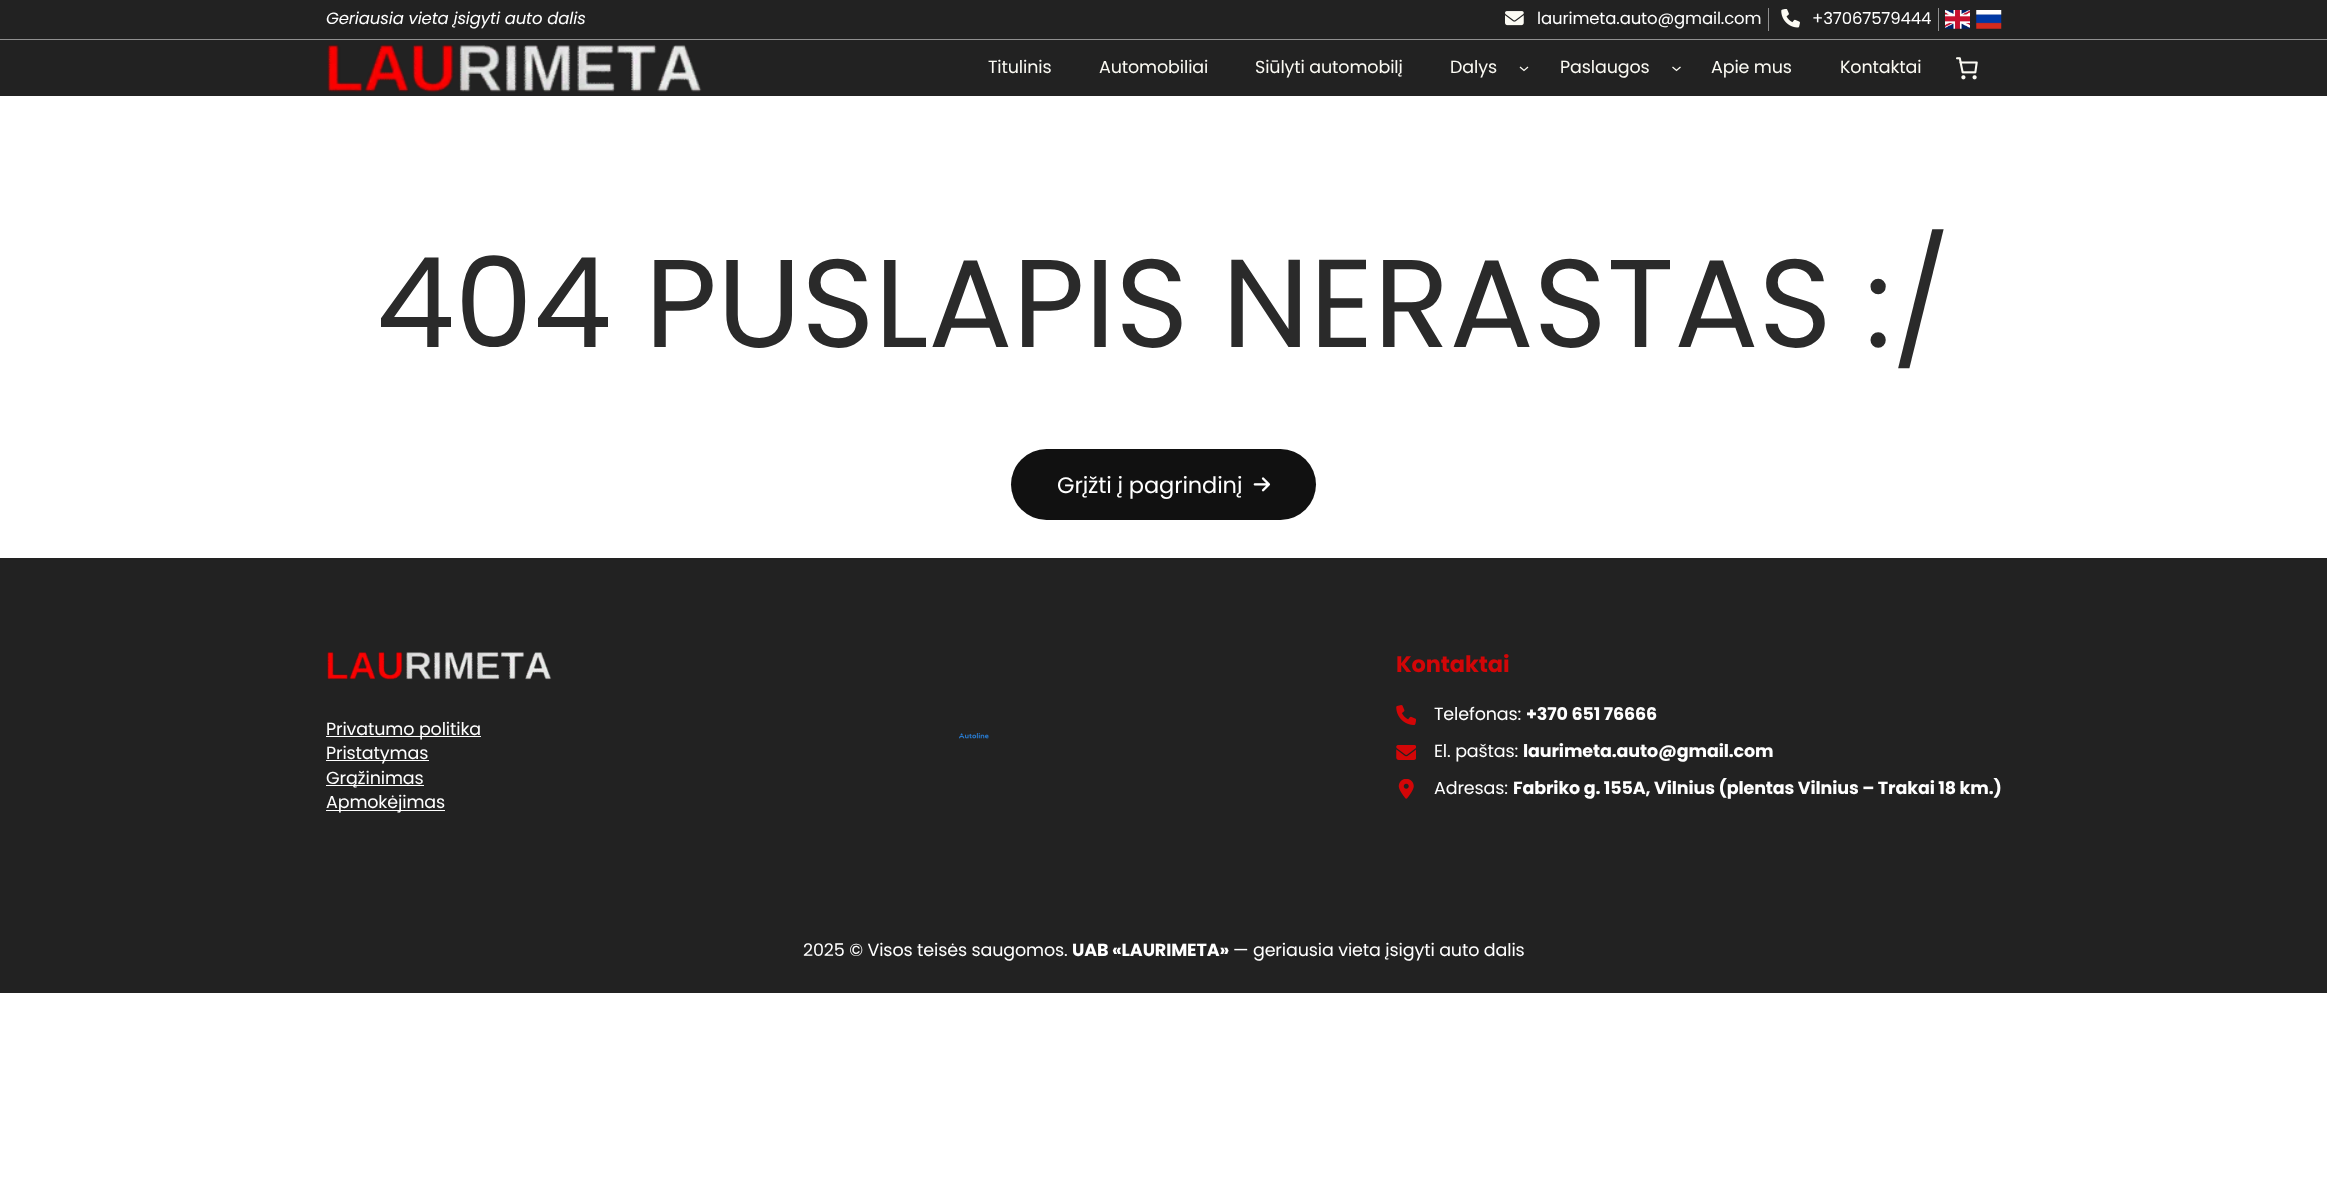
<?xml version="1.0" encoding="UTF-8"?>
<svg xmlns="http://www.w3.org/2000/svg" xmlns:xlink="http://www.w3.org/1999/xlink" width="2327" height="1200">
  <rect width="100%" height="100%" fill="#ffffff" />
  <rect width="2327" height="39" fill="#222222" />
  <rect y="39" width="2327" height="1" fill="#909090" />
  <image x="1505" y="11" width="19" height="15" xlink:href="image1.png" />
  <rect x="1768" y="8" width="1" height="23" fill="#909090" />
  <image x="1781" y="9" width="19" height="19" xlink:href="image2.png" />
  <rect x="1938" y="8" width="1" height="23" fill="#909090" />
  <image x="1945" y="10" width="25" height="19" xlink:href="image3.png" />
  <image x="1976" y="10" width="26" height="19" xlink:href="image4.png" />
  <rect y="40" width="2327" height="56" fill="#222222" />
  <image x="327" y="44" width="375" height="49" xlink:href="image5.png" />
  <path d="M 1520 67 l 4 3.5 l 4 -3.5" fill="none" stroke="#fbfaf3" stroke-width="1.3" />
  <path d="M 1672.5 67 l 4 3.5 l 4 -3.5" fill="none" stroke="#fbfaf3" stroke-width="1.3" />
  <image x="1956" y="57" width="22" height="23" xlink:href="image6.png" />
  <rect x="1011" y="449" width="305" height="71" rx="35.5" fill="#111111" />
  <image x="1253" y="477" width="18" height="15" xlink:href="image7.png" />
  <rect y="558" width="2327" height="435" fill="#222222" />
  <image x="327" y="652" width="225" height="28" xlink:href="image8.png" />
  <rect x="326" y="736" width="155" height="1" fill="#ffffff" />
  <rect x="326" y="760" width="103" height="1" fill="#ffffff" />
  <rect x="326" y="785" width="98" height="1" fill="#ffffff" />
  <rect x="326" y="810" width="119" height="1" fill="#ffffff" />
  <image x="959" y="731" width="30" height="8" xlink:href="image9.png" />
  <image x="1396" y="705" width="20" height="20" xlink:href="image10.png" />
  <image x="1396" y="745" width="20" height="15" xlink:href="image11.png" />
  <image x="1398" y="779" width="16" height="20" xlink:href="image12.png" />
  <text x="326" y="24" style="font-family: Poppins; font-size: 16.5px; font-style: italic; letter-spacing: -0.12px; fill: #ffffff">Geriausia vieta įsigyti auto dalis</text>
  <text x="1537" y="24" style="font-family: Poppins; font-size: 16.5px; letter-spacing: -0.12px; fill: #ffffff">laurimeta.auto@gmail.com</text>
  <text x="1812" y="24" style="font-family: Poppins; font-size: 16.5px; letter-spacing: -0.12px; fill: #ffffff">+37067579444</text>
  <text x="988" y="73" style="font-family: Poppins; font-size: 17.5px; letter-spacing: -0.12px; fill: #fbfaf3">Titulinis</text>
  <text x="1099" y="73" style="font-family: Poppins; font-size: 17.5px; letter-spacing: -0.12px; fill: #fbfaf3">Automobiliai</text>
  <text x="1255" y="73" style="font-family: Poppins; font-size: 17.5px; letter-spacing: -0.12px; fill: #fbfaf3">Siūlyti automobilį</text>
  <text x="1450" y="73" style="font-family: Poppins; font-size: 17.5px; letter-spacing: -0.12px; fill: #fbfaf3">Dalys</text>
  <text x="1560" y="73" style="font-family: Poppins; font-size: 17.5px; letter-spacing: -0.12px; fill: #fbfaf3">Paslaugos</text>
  <text x="1711" y="73" style="font-family: Poppins; font-size: 17.5px; letter-spacing: -0.12px; fill: #fbfaf3">Apie mus</text>
  <text x="1840" y="73" style="font-family: Poppins; font-size: 17.5px; letter-spacing: -0.12px; fill: #fbfaf3">Kontaktai</text>
  <text x="376" y="347" style="font-family: Poppins; font-size: 125px; letter-spacing: -0.12px; fill: #2a2a2a">404 PUSLAPIS NERASTAS :/</text>
  <text x="1057" y="493" style="font-family: Poppins; font-size: 22.5px; letter-spacing: -0.12px; fill: #ffffff">Grįžti į pagrindinį</text>
  <text x="326" y="735" style="font-family: Poppins; font-size: 17.5px; letter-spacing: -0.12px; fill: #ffffff">Privatumo politika</text>
  <text x="326" y="759" style="font-family: Poppins; font-size: 17.5px; letter-spacing: -0.12px; fill: #ffffff">Pristatymas</text>
  <text x="326" y="784" style="font-family: Poppins; font-size: 17.5px; letter-spacing: -0.12px; fill: #ffffff">Grąžinimas</text>
  <text x="326" y="808" style="font-family: Poppins; font-size: 17.5px; letter-spacing: -0.12px; fill: #ffffff">Apmokėjimas</text>
  <text x="1396" y="672" style="font-family: Poppins; font-size: 22.5px; font-weight: bold; letter-spacing: -0.12px; fill: #d20607">Kontaktai</text>
  <text x="1434" y="720" style="font-family: Poppins; font-size: 17.5px; letter-spacing: -0.12px; fill: #ffffff">Telefonas:</text>
  <text x="1526" y="720" style="font-family: Poppins; font-size: 17.5px; font-weight: bold; letter-spacing: -0.12px; fill: #ffffff">+370 651 76666</text>
  <text x="1434" y="757" style="font-family: Poppins; font-size: 17.5px; letter-spacing: -0.12px; fill: #ffffff">El. paštas:</text>
  <text x="1523" y="757" style="font-family: Poppins; font-size: 17.5px; font-weight: bold; letter-spacing: -0.12px; fill: #ffffff">laurimeta.auto@gmail.com</text>
  <text x="1434" y="794" style="font-family: Poppins; font-size: 17.5px; letter-spacing: -0.12px; fill: #ffffff">Adresas:</text>
  <text x="1513" y="794" style="font-family: Poppins; font-size: 17.5px; font-weight: bold; letter-spacing: -0.12px; fill: #ffffff">Fabriko g. 155A, Vilnius (plentas Vilnius – Trakai 18 km.)</text>
  <text x="803" y="956" style="font-family: Poppins; font-size: 17.5px; letter-spacing: -0.12px; fill: #ffffff">2025 © Visos teisės saugomos.</text>
  <text x="1072" y="956" style="font-family: Poppins; font-size: 17.5px; font-weight: bold; letter-spacing: -0.12px; fill: #ffffff">UAB «LAURIMETA»</text>
  <text x="1233" y="956" style="font-family: Poppins; font-size: 17.5px; letter-spacing: -0.12px; fill: #ffffff">— geriausia vieta įsigyti auto dalis</text>
</svg>
